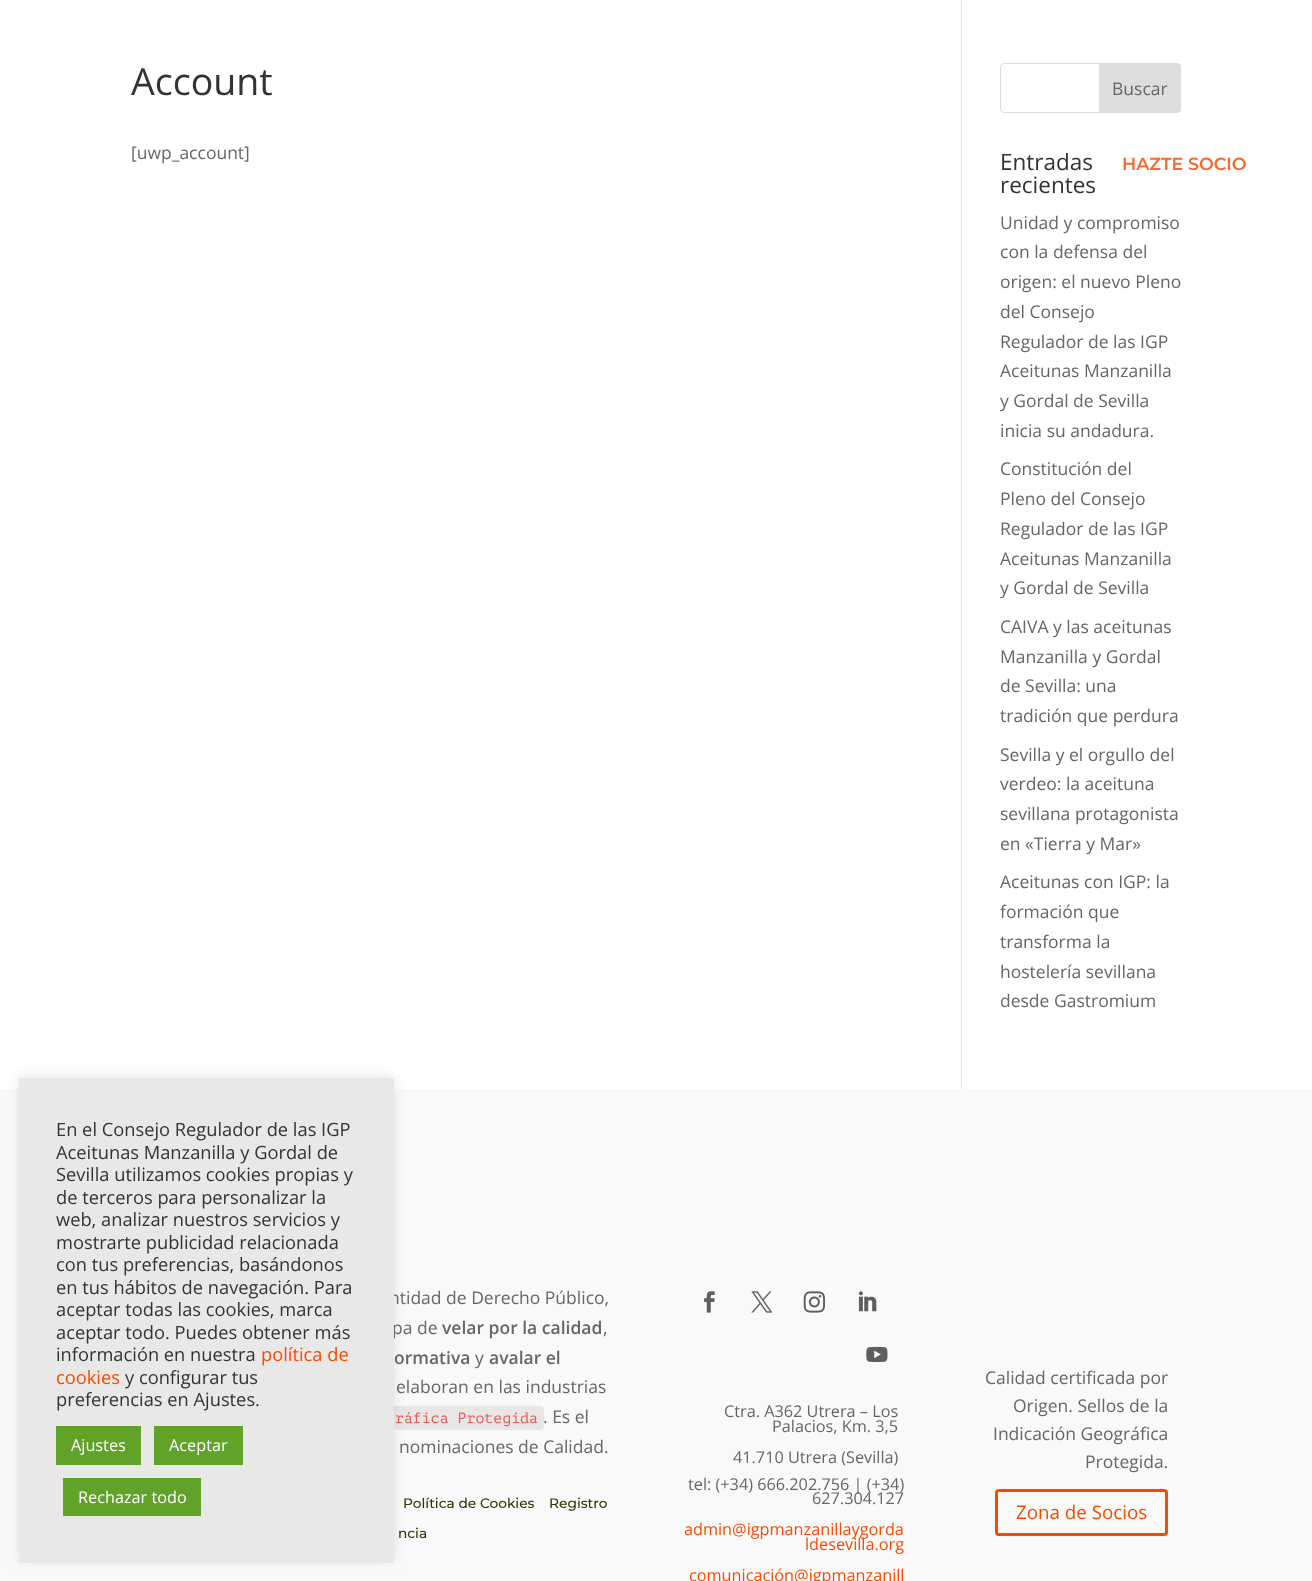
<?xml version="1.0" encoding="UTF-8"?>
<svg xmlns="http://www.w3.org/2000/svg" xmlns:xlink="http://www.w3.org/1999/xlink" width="1312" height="1581">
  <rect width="100%" height="100%" fill="#ffffff" />
  <rect x="961" width="1" height="1089" fill="#e2e2e2" />
  <rect x="1000.5" y="63.5" width="180" height="49" rx="3.5" fill="none" stroke="#dddddd" />
  <path d="M 1099.5 63.5 h 77.5 c 2 0 3.5 1.5 3.5 3.5 v 42 c 0 2 -1.5 3.5 -3.5 3.5 h -77.5 z" fill="#dddddd" stroke="#dddddd" />
  <rect y="1089" width="1312" height="492" fill="#f9f9f9" />
  <rect x="255" y="1406" width="289" height="24" rx="4" fill="#e8e7e6" />
  <image x="704" y="1291" width="11" height="22" xlink:href="image1.png" />
  <image x="751" y="1291" width="22" height="22" xlink:href="image2.png" />
  <image x="803" y="1291" width="22" height="22" xlink:href="image3.png" />
  <image x="858" y="1291" width="19" height="21" xlink:href="image4.png" />
  <image x="866" y="1346" width="22" height="16" xlink:href="image5.png" />
  <rect x="996.5" y="1490.5" width="170" height="44" rx="2.5" fill="none" stroke="#f74a00" stroke-width="3" />
  <rect x="19" y="1076" width="375" height="485" fill="#acabab" fill-opacity="0.3" filter="blur(6px)" />
  <text x="131" y="95" style="font-family: Open Sans; font-size: 37.5px; fill: #333333">Account</text>
  <text x="131" y="159" style="font-family: Open Sans; font-size: 17.5px; fill: #666666">[uwp_account]</text>
  <text x="1112" y="95" style="font-family: Open Sans; font-size: 17.5px; fill: #666666">Buscar</text>
  <text x="1000" y="170" style="font-family: Open Sans; font-size: 22.5px; fill: #333333">Entradas</text>
  <text x="1000" y="193" style="font-family: Open Sans; font-size: 22.5px; fill: #333333">recientes</text>
  <text x="1000" y="229" style="font-family: Open Sans; font-size: 17.5px; fill: #666666">Unidad y compromiso</text>
  <text x="1000" y="258" style="font-family: Open Sans; font-size: 17.5px; fill: #666666">con la defensa del</text>
  <text x="1000" y="288" style="font-family: Open Sans; font-size: 17.5px; fill: #666666">origen: el nuevo Pleno</text>
  <text x="1000" y="318" style="font-family: Open Sans; font-size: 17.5px; fill: #666666">del Consejo</text>
  <text x="1000" y="348" style="font-family: Open Sans; font-size: 17.5px; fill: #666666">Regulador de las IGP</text>
  <text x="1000" y="377" style="font-family: Open Sans; font-size: 17.5px; fill: #666666">Aceitunas Manzanilla</text>
  <text x="1000" y="407" style="font-family: Open Sans; font-size: 17.5px; fill: #666666">y Gordal de Sevilla</text>
  <text x="1000" y="437" style="font-family: Open Sans; font-size: 17.5px; fill: #666666">inicia su andadura.</text>
  <text x="1000" y="475" style="font-family: Open Sans; font-size: 17.5px; fill: #666666">Constitución del</text>
  <text x="1000" y="505" style="font-family: Open Sans; font-size: 17.5px; fill: #666666">Pleno del Consejo</text>
  <text x="1000" y="535" style="font-family: Open Sans; font-size: 17.5px; fill: #666666">Regulador de las IGP</text>
  <text x="1000" y="565" style="font-family: Open Sans; font-size: 17.5px; fill: #666666">Aceitunas Manzanilla</text>
  <text x="1000" y="594" style="font-family: Open Sans; font-size: 17.5px; fill: #666666">y Gordal de Sevilla</text>
  <text x="1000" y="633" style="font-family: Open Sans; font-size: 17.5px; fill: #666666">CAIVA y las aceitunas</text>
  <text x="1000" y="663" style="font-family: Open Sans; font-size: 17.5px; fill: #666666">Manzanilla y Gordal</text>
  <text x="1000" y="692" style="font-family: Open Sans; font-size: 17.5px; fill: #666666">de Sevilla: una</text>
  <text x="1000" y="722" style="font-family: Open Sans; font-size: 17.5px; fill: #666666">tradición que perdura</text>
  <text x="1000" y="761" style="font-family: Open Sans; font-size: 17.5px; fill: #666666">Sevilla y el orgullo del</text>
  <text x="1000" y="790" style="font-family: Open Sans; font-size: 17.5px; fill: #666666">verdeo: la aceituna</text>
  <text x="1000" y="820" style="font-family: Open Sans; font-size: 17.5px; fill: #666666">sevillana protagonista</text>
  <text x="1000" y="850" style="font-family: Open Sans; font-size: 17.5px; fill: #666666">en «Tierra y Mar»</text>
  <text x="1000" y="888" style="font-family: Open Sans; font-size: 17.5px; fill: #666666">Aceitunas con IGP: la</text>
  <text x="1000" y="918" style="font-family: Open Sans; font-size: 17.5px; fill: #666666">formación que</text>
  <text x="1000" y="948" style="font-family: Open Sans; font-size: 17.5px; fill: #666666">transforma la</text>
  <text x="1000" y="978" style="font-family: Open Sans; font-size: 17.5px; fill: #666666">hostelería sevillana</text>
  <text x="1000" y="1007" style="font-family: Open Sans; font-size: 17.5px; fill: #666666">desde Gastromium</text>
  <text x="389" y="1304" style="font-family: Open Sans; font-size: 17.5px; fill: #666666">ntidad de Derecho Público,</text>
  <text x="392" y="1334" style="font-family: Open Sans; font-size: 17.5px; fill: #666666">pa de</text>
  <text x="442" y="1334" style="font-family: Open Sans; font-size: 17.5px; font-weight: 600; fill: #666666">velar por la calidad</text>
  <text x="603" y="1334" style="font-family: Open Sans; font-size: 17.5px; fill: #666666">,</text>
  <text x="394" y="1364" style="font-family: Open Sans; font-size: 17.5px; font-weight: 600; fill: #666666">ormativa</text>
  <text x="475" y="1364" style="font-family: Open Sans; font-size: 17.5px; fill: #666666">y</text>
  <text x="489" y="1364" style="font-family: Open Sans; font-size: 17.5px; font-weight: 600; fill: #666666">avalar el</text>
  <text x="396" y="1393" style="font-family: Open Sans; font-size: 17.5px; fill: #666666">elaboran en las industrias</text>
  <text x="395" y="1423" style="font-family: PT Mono; font-size: 14.9px; fill: #eb5757">ráfica Protegida</text>
  <text x="543" y="1423" style="font-family: Open Sans; font-size: 17.5px; fill: #666666">. Es el</text>
  <text x="399" y="1453" style="font-family: Open Sans; font-size: 17.5px; fill: #666666">nominaciones de Calidad.</text>
  <text x="403" y="1508" style="font-family: Montserrat; font-size: 13.75px; font-weight: 500; fill: #333300">Política de Cookies</text>
  <text x="549" y="1508" style="font-family: Montserrat; font-size: 13.75px; font-weight: 500; fill: #333300">Registro</text>
  <text x="398" y="1538" style="font-family: Montserrat; font-size: 13.75px; font-weight: 500; fill: #333300">ncia</text>
  <text x="724" y="1417" style="font-family: Open Sans; font-size: 16.25px; fill: #666666">Ctra. A362 Utrera – Los</text>
  <text x="772" y="1432" style="font-family: Open Sans; font-size: 16.25px; fill: #666666">Palacios, Km. 3,5</text>
  <text x="733" y="1463" style="font-family: Open Sans; font-size: 16.25px; fill: #666666">41.710 Utrera (Sevilla)</text>
  <text x="688" y="1490" style="font-family: Open Sans; font-size: 16.25px; fill: #666666">tel: (+34) 666.202.756 | (+34)</text>
  <text x="812" y="1504" style="font-family: Open Sans; font-size: 16.25px; fill: #666666">627.304.127</text>
  <text x="684" y="1535" style="font-family: Open Sans; font-size: 16.25px; fill: #f74a00">admin@igpmanzanillaygorda</text>
  <text x="805" y="1550" style="font-family: Open Sans; font-size: 16.25px; fill: #f74a00">ldesevilla.org</text>
  <text x="689" y="1581" style="font-family: Open Sans; font-size: 16.25px; fill: #f74a00">comunicación@igpmanzanill</text>
  <text x="985" y="1384" style="font-family: Open Sans; font-size: 17.5px; fill: #666666">Calidad certificada por</text>
  <text x="1013" y="1412" style="font-family: Open Sans; font-size: 17.5px; fill: #666666">Origen. Sellos de la</text>
  <text x="993" y="1440" style="font-family: Open Sans; font-size: 17.5px; fill: #666666">Indicación Geográfica</text>
  <text x="1085" y="1468" style="font-family: Open Sans; font-size: 17.5px; fill: #666666">Protegida.</text>
  <text x="1016" y="1519" style="font-family: Open Sans; font-size: 18.75px; fill: #f74a00">Zona de Socios</text>
  <image x="207" y="150" width="3" height="2" xlink:href="image6.png" />
  <text x="1122" y="170" style="font-family: Montserrat; font-size: 17.5px; font-weight: 600; fill: #f46a2f">HAZTE SOCIO</text>
  <rect x="19" y="1078" width="375" height="485" fill="#e8e8e8" />
  <text x="56" y="1136" style="font-family: Open Sans; font-size: 18.3px; fill: #333333">En el Consejo Regulador de las IGP</text>
  <text x="56" y="1159" style="font-family: Open Sans; font-size: 18.3px; fill: #333333">Aceitunas Manzanilla y Gordal de</text>
  <text x="56" y="1181" style="font-family: Open Sans; font-size: 18.3px; fill: #333333">Sevilla utilizamos cookies propias y</text>
  <text x="56" y="1204" style="font-family: Open Sans; font-size: 18.3px; fill: #333333">de terceros para personalizar la</text>
  <text x="56" y="1226" style="font-family: Open Sans; font-size: 18.3px; fill: #333333">web, analizar nuestros servicios y</text>
  <text x="56" y="1249" style="font-family: Open Sans; font-size: 18.3px; fill: #333333">mostrarte publicidad relacionada</text>
  <text x="56" y="1271" style="font-family: Open Sans; font-size: 18.3px; fill: #333333">con tus preferencias, basándonos</text>
  <text x="56" y="1294" style="font-family: Open Sans; font-size: 18.3px; fill: #333333">en tus hábitos de navegación. Para</text>
  <text x="56" y="1316" style="font-family: Open Sans; font-size: 18.3px; fill: #333333">aceptar todas las cookies, marca</text>
  <text x="56" y="1339" style="font-family: Open Sans; font-size: 18.3px; fill: #333333">aceptar todo. Puedes obtener más</text>
  <text x="56" y="1361" style="font-family: Open Sans; font-size: 18.3px; fill: #333333">información en nuestra</text>
  <text x="261" y="1361" style="font-family: Open Sans; font-size: 18.3px; fill: #f74a00">política de</text>
  <text x="56" y="1384" style="font-family: Open Sans; font-size: 18.3px; fill: #f74a00">cookies</text>
  <text x="125" y="1384" style="font-family: Open Sans; font-size: 18.3px; fill: #333333">y configurar tus</text>
  <text x="56" y="1406" style="font-family: Open Sans; font-size: 18.3px; fill: #333333">preferencias en Ajustes.</text>
  <rect x="56" y="1426" width="85" height="39" fill="#61a229" />
  <text x="71" y="1451" style="font-family: Open Sans; font-size: 16.25px; fill: #ffffff">Ajustes</text>
  <rect x="154" y="1426" width="89" height="39" fill="#61a229" />
  <text x="169" y="1451" style="font-family: Open Sans; font-size: 16.25px; fill: #ffffff">Aceptar</text>
  <rect x="63" y="1478" width="138" height="38" fill="#61a229" />
  <text x="78" y="1503" style="font-family: Open Sans; font-size: 16.25px; fill: #ffffff">Rechazar todo</text>
</svg>
